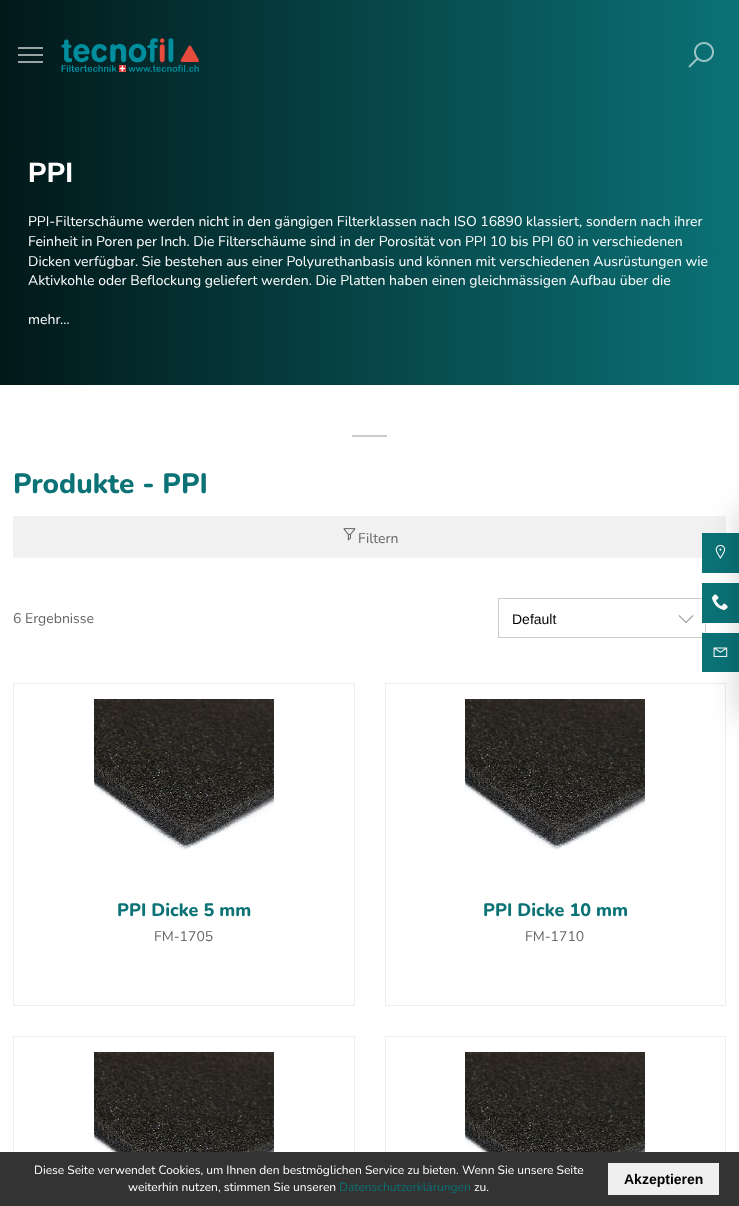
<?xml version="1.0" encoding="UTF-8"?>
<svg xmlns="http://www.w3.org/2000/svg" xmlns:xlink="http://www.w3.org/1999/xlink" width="739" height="1206">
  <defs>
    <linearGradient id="g1" gradientUnits="userSpaceOnUse" x1="0" y1="1165" x2="739" y2="1165"><stop offset="0" stop-color="#021819" /><stop offset="1" stop-color="#0b7276" /></linearGradient>
    <linearGradient id="g2" gradientUnits="userSpaceOnUse" x1="0" y1="1165" x2="739" y2="1165"><stop offset="0" stop-color="#9aa3a3" /><stop offset="1" stop-color="#9dc7c8" /></linearGradient>
    <linearGradient id="g3" gradientUnits="userSpaceOnUse" x1="0" y1="238" x2="739" y2="237"><stop offset="0" stop-color="#021819" /><stop offset="1" stop-color="#0b7276" /></linearGradient>
  </defs>
  <rect width="100%" height="100%" fill="#ffffff" />
  <rect width="739" height="90" fill="url(#g1)" />
  <rect x="18" y="61" width="25" height="2" fill="url(#g2)" />
  <rect x="18" y="47" width="25" height="2" fill="url(#g2)" />
  <rect x="18" y="54" width="25" height="2" fill="url(#g2)" />
  <image x="61" y="38" width="138" height="34" xlink:href="image1.png" />
  <image x="688" y="42" width="26" height="26" xlink:href="image2.png" />
  <rect y="90" width="739" height="295" fill="url(#g3)" />
  <rect x="352" y="435" width="35" height="2" fill="#cccccc" />
  <rect x="13" y="516" width="713" height="42" fill="#f1f1f1" />
  <image x="343" y="528" width="13" height="13" xlink:href="image3.png" />
  <image x="678" y="615" width="16" height="9" xlink:href="image4.png" />
  <rect x="498.5" y="598.5" width="207" height="39" fill="none" stroke="#cccccc" />
  <rect x="13.5" y="683.5" width="341" height="322" fill="none" stroke="#eeeeee" />
  <image x="94" y="699" width="180" height="151" xlink:href="image5.png" />
  <rect x="385.5" y="683.5" width="340" height="322" fill="none" stroke="#eeeeee" />
  <image x="465" y="699" width="180" height="151" xlink:href="image6.png" />
  <rect x="13.5" y="1036.5" width="341" height="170" fill="none" stroke="#eeeeee" />
  <image x="94" y="1052" width="180" height="100" xlink:href="image7.png" />
  <rect x="385.5" y="1036.5" width="340" height="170" fill="none" stroke="#eeeeee" />
  <image x="465" y="1052" width="180" height="100" xlink:href="image8.png" />
  <rect y="1152" width="739" height="54" fill="#333333" />
  <rect x="608" y="1163" width="111" height="32" fill="#efefef" />
  <rect x="702" y="533" width="37" height="40" fill="#0b7276" />
  <image x="715" y="544" width="11" height="15" xlink:href="image9.png" />
  <rect x="702" y="583" width="37" height="40" fill="#0b7276" />
  <image x="712" y="594" width="16" height="16" xlink:href="image10.png" />
  <rect x="702" y="633" width="37" height="39" fill="#0b7276" />
  <image x="713" y="647" width="15" height="10" xlink:href="image11.png" />
  <rect x="739" y="509" width="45" height="208" fill="#000000" fill-opacity="0.18" filter="blur(15px)" />
  <text x="28" y="182" style="font-family: Liberation Sans; font-size: 28px; font-weight: bold; fill: #ffffff">PPI</text>
  <text x="28" y="226" style="font-family: Nunito; font-size: 14px; fill: #ffffff">PPI-Filterschäume werden nicht in den gängigen Filterklassen nach ISO 16890 klassiert, sondern nach ihrer</text>
  <text x="28" y="246" style="font-family: Nunito; font-size: 14px; fill: #ffffff">Feinheit in Poren per Inch. Die Filterschäume sind in der Porosität von PPI 10 bis PPI 60 in verschiedenen</text>
  <text x="28" y="266" style="font-family: Nunito; font-size: 14px; fill: #ffffff">Dicken verfügbar. Sie bestehen aus einer Polyurethanbasis und können mit verschiedenen Ausrüstungen wie</text>
  <text x="28" y="285" style="font-family: Nunito; font-size: 14px; fill: #ffffff">Aktivkohle oder Beflockung geliefert werden. Die Platten haben einen gleichmässigen Aufbau über die</text>
  <text x="28" y="324" style="font-family: Nunito; font-size: 14px; fill: #ffffff">mehr...</text>
  <text x="13" y="493" style="font-family: Nunito; font-size: 28px; font-weight: 800; fill: #0b7276">Produkte - PPI</text>
  <text x="358" y="543" style="font-family: Nunito; font-size: 14px; fill: #666666">Filtern</text>
  <text x="13" y="623" style="font-family: Nunito; font-size: 14px; fill: #666666">6 Ergebnisse</text>
  <text x="512" y="624" style="font-family: Liberation Sans; font-size: 14px; fill: #000000">Default</text>
  <text x="117" y="916" style="font-family: Nunito; font-size: 18px; font-weight: 800; fill: #0b7276">PPI Dicke 5 mm</text>
  <text x="154" y="941" style="font-family: Nunito; font-size: 14px; fill: #666666">FM-1705</text>
  <text x="483" y="916" style="font-family: Nunito; font-size: 18px; font-weight: 800; fill: #0b7276">PPI Dicke 10 mm</text>
  <text x="525" y="941" style="font-family: Nunito; font-size: 14px; fill: #666666">FM-1710</text>
  <text x="34" y="1174" style="font-family: Nunito; font-size: 12px; fill: #ffffff">Diese Seite verwendet Cookies, um Ihnen den bestmöglichen Service zu bieten. Wenn Sie unsere Seite</text>
  <text x="128" y="1191" style="font-family: Nunito; font-size: 12px; fill: #ffffff">weiterhin nutzen, stimmen Sie unseren</text>
  <text x="339" y="1191" style="font-family: Nunito; font-size: 12px; fill: #0b7276">Datenschutzerklärungen</text>
  <text x="474" y="1191" style="font-family: Nunito; font-size: 12px; fill: #ffffff">zu.</text>
  <text x="624" y="1184" style="font-family: Liberation Sans; font-size: 14px; font-weight: bold; fill: #000000">Akzeptieren</text>
</svg>
